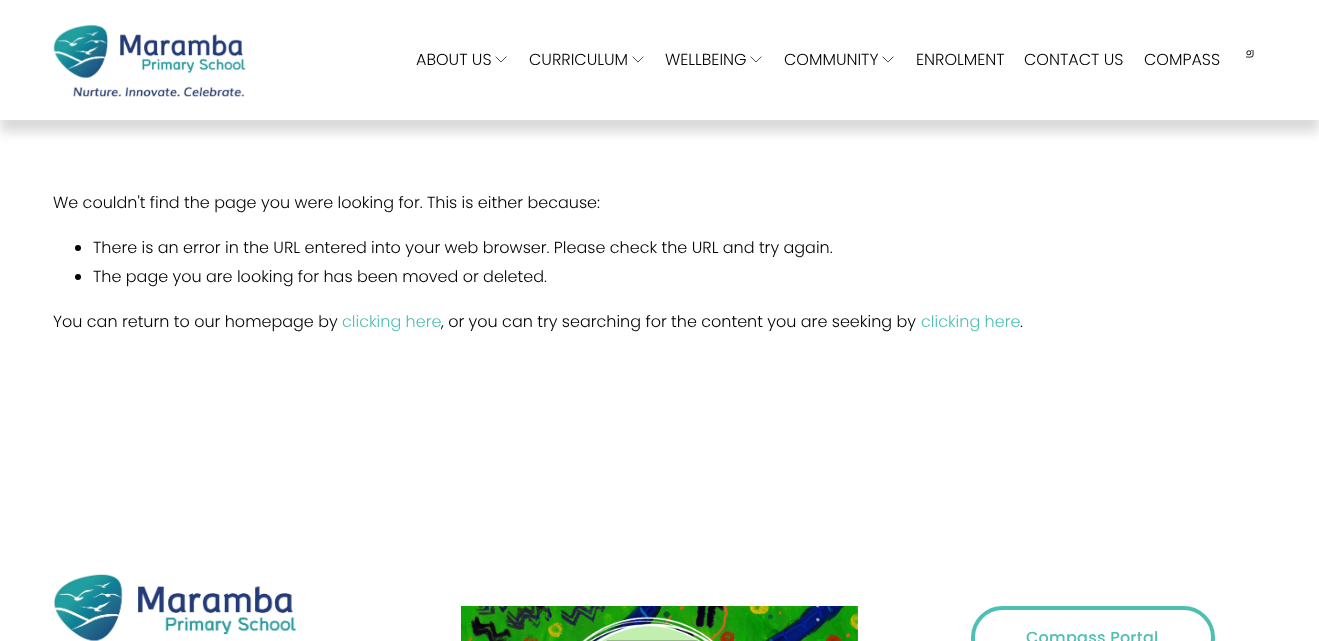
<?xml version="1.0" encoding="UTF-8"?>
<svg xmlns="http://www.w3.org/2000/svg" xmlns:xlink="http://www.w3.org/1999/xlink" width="1319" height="641">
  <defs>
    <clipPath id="clip1"><rect x="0" y="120" width="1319" height="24" /></clipPath>
  </defs>
  <rect width="100%" height="100%" fill="#ffffff" />
  <g clip-path="url(#clip1)">
    <rect y="12" width="1319" height="120" fill="#d9d9d9" filter="blur(6px)" />
  </g>
  <image x="53" y="24" width="193" height="73" xlink:href="image1.png" />
  <path d="M 506 57 l -5 5 l -5 -5" fill="none" stroke="#000000" stroke-width="0.7" stroke-linecap="square" />
  <path d="M 643 57 l -5 5 l -5 -5" fill="none" stroke="#000000" stroke-width="0.7" stroke-linecap="square" />
  <path d="M 761 57 l -5 5 l -5 -5" fill="none" stroke="#000000" stroke-width="0.7" stroke-linecap="square" />
  <path d="M 893 57 l -5 5 l -5 -5" fill="none" stroke="#000000" stroke-width="0.7" stroke-linecap="square" />
  <image x="1246" y="50" width="8" height="8" xlink:href="image2.png" />
  <circle cx="78" cy="248" r="3" fill="#000000" />
  <circle cx="78" cy="277" r="3" fill="#000000" />
  <image x="53" y="574" width="244" height="67" xlink:href="image3.png" />
  <image x="461" y="606" width="397" height="35" xlink:href="image4.png" />
  <rect x="973" y="608" width="240" height="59" rx="29.5" fill="none" stroke="#4ebfb3" stroke-width="4" />
  <text x="416" y="65" style="font-family: Poppins; font-size: 16px; font-weight: 300; fill: #000000">ABOUT US</text>
  <text x="529" y="65" style="font-family: Poppins; font-size: 16px; font-weight: 300; fill: #000000">CURRICULUM</text>
  <text x="665" y="65" style="font-family: Poppins; font-size: 16px; font-weight: 300; fill: #000000">WELLBEING</text>
  <text x="784" y="65" style="font-family: Poppins; font-size: 16px; font-weight: 300; fill: #000000">COMMUNITY</text>
  <text x="916" y="65" style="font-family: Poppins; font-size: 16px; font-weight: 300; fill: #000000">ENROLMENT</text>
  <text x="1024" y="65" style="font-family: Poppins; font-size: 16px; font-weight: 300; fill: #000000">CONTACT US</text>
  <text x="1144" y="65" style="font-family: Poppins; font-size: 16px; font-weight: 300; fill: #000000">COMPASS</text>
  <text x="53" y="208" style="font-family: Poppins; font-size: 16px; font-weight: 300; fill: #000000">We couldn't find the page you were looking for. This is either because:</text>
  <text x="93" y="253" style="font-family: Poppins; font-size: 16px; font-weight: 300; fill: #000000">There is an error in the URL entered into your web browser. Please check the URL and try again.</text>
  <text x="93" y="282" style="font-family: Poppins; font-size: 16px; font-weight: 300; fill: #000000">The page you are looking for has been moved or deleted.</text>
  <text x="53" y="327" style="font-family: Poppins; font-size: 16px; font-weight: 300; fill: #000000">You can return to our homepage by</text>
  <text x="342" y="327" style="font-family: Poppins; font-size: 16px; font-weight: 300; fill: #4ebfb3">clicking here</text>
  <text x="441" y="327" style="font-family: Poppins; font-size: 16px; font-weight: 300; fill: #000000">, or you can try searching for the content you are seeking by</text>
  <text x="921" y="327" style="font-family: Poppins; font-size: 16px; font-weight: 300; fill: #4ebfb3">clicking here</text>
  <text x="1020" y="327" style="font-family: Poppins; font-size: 16px; font-weight: 300; fill: #000000">.</text>
  <text x="1026" y="643" style="font-family: Poppins; font-size: 16px; font-weight: 500; letter-spacing: 0.25px; fill: #4ebfb3">Compass Portal</text>
</svg>
